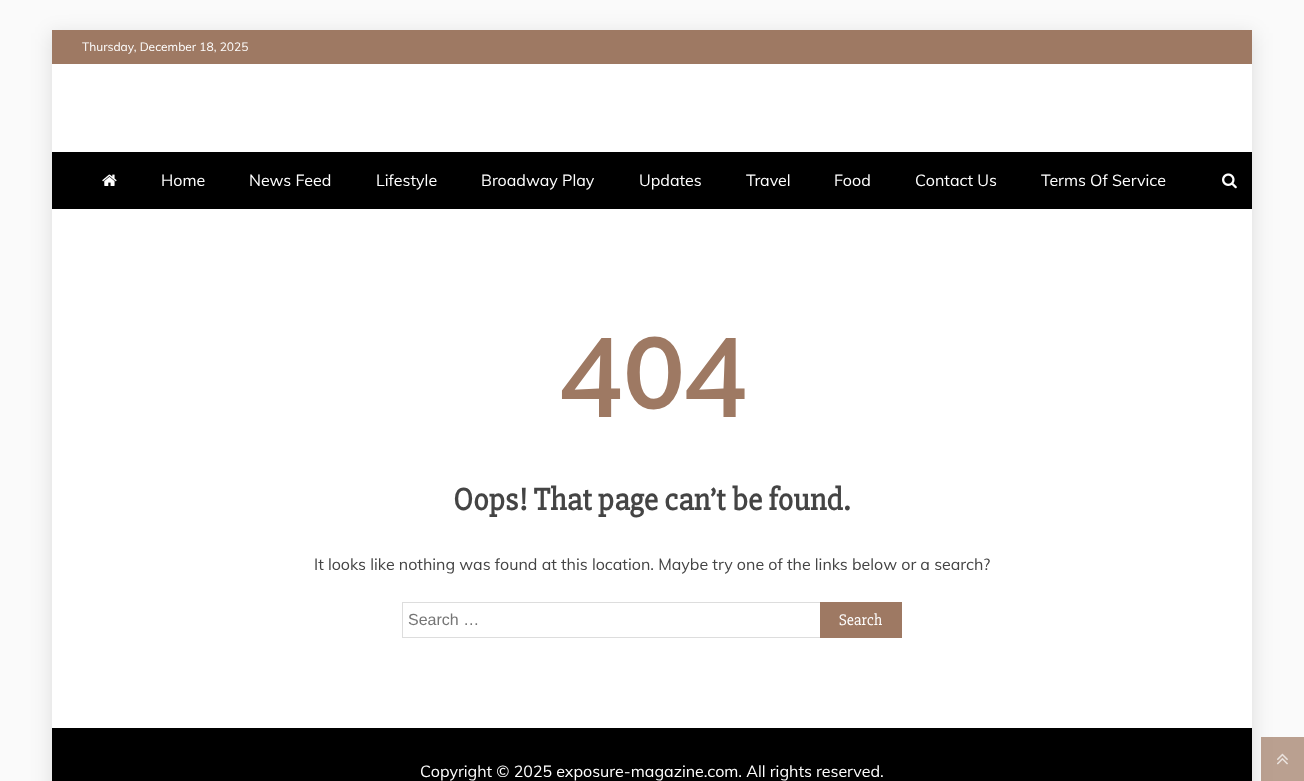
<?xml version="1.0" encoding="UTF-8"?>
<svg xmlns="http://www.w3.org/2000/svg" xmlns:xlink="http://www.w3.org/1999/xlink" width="1304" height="781">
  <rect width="100%" height="100%" fill="#fafafa" />
  <rect x="50" y="33" width="1204" height="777" fill="#000000" fill-opacity="0.1" filter="blur(9.5px)" />
  <rect x="52" y="64" width="1200" height="664" fill="#ffffff" />
  <rect x="52" y="30" width="1200" height="34" fill="#9e7963" />
  <rect x="52" y="152" width="1200" height="57" fill="#000000" />
  <image x="102" y="174" width="15" height="12" xlink:href="image1.png" />
  <image x="1222" y="173" width="15" height="16" xlink:href="image2.png" />
  <rect x="402.5" y="602.5" width="499" height="35" fill="none" stroke="#dddddd" />
  <rect x="820" y="602" width="82" height="36" fill="#9e7963" />
  <rect x="52" y="728" width="1200" height="53" fill="#000000" />
  <rect x="1261" y="737" width="43" height="44" fill="#9e7963" fill-opacity="0.7" />
  <image x="1277" y="753" width="11" height="12" xlink:href="image3.png" />
  <text x="82" y="51" style="font-family: Muli; font-size: 12px; fill: #ffffff">Thursday, December 18, 2025</text>
  <text x="161" y="186" style="font-family: Muli; font-size: 16px; fill: #ffffff">Home</text>
  <text x="249" y="186" style="font-family: Muli; font-size: 16px; fill: #ffffff">News Feed</text>
  <text x="376" y="186" style="font-family: Muli; font-size: 16px; fill: #ffffff">Lifestyle</text>
  <text x="481" y="186" style="font-family: Muli; font-size: 16px; fill: #ffffff">Broadway Play</text>
  <text x="639" y="186" style="font-family: Muli; font-size: 16px; fill: #ffffff">Updates</text>
  <text x="746" y="186" style="font-family: Muli; font-size: 16px; fill: #ffffff">Travel</text>
  <text x="834" y="186" style="font-family: Muli; font-size: 16px; fill: #ffffff">Food</text>
  <text x="915" y="186" style="font-family: Muli; font-size: 16px; fill: #ffffff">Contact Us</text>
  <text x="1041" y="186" style="font-family: Muli; font-size: 16px; fill: #ffffff">Terms Of Service</text>
  <text x="559" y="408" style="font-family: 'Slabo 27px'; font-size: 120px; font-weight: bold; fill: #9e7963">404</text>
  <text x="453" y="510" style="font-family: 'Slabo 27px'; font-size: 32px; font-weight: bold; fill: #444444">Oops! That page can’t be found.</text>
  <text x="314" y="570" style="font-family: Muli; font-size: 16px; fill: #444444">It looks like nothing was found at this location. Maybe try one of the links below or a search?</text>
  <text x="408" y="625" style="font-family: Liberation Sans; font-size: 16px; fill: #757575">Search …</text>
  <text x="839" y="625" style="font-family: 'Slabo 27px'; font-size: 16px; fill: #ffffff">Search</text>
  <text x="420" y="777" style="font-family: Muli; font-size: 16px; fill: #ffffff">Copyright © 2025 exposure-magazine.com. All rights reserved.</text>
</svg>
